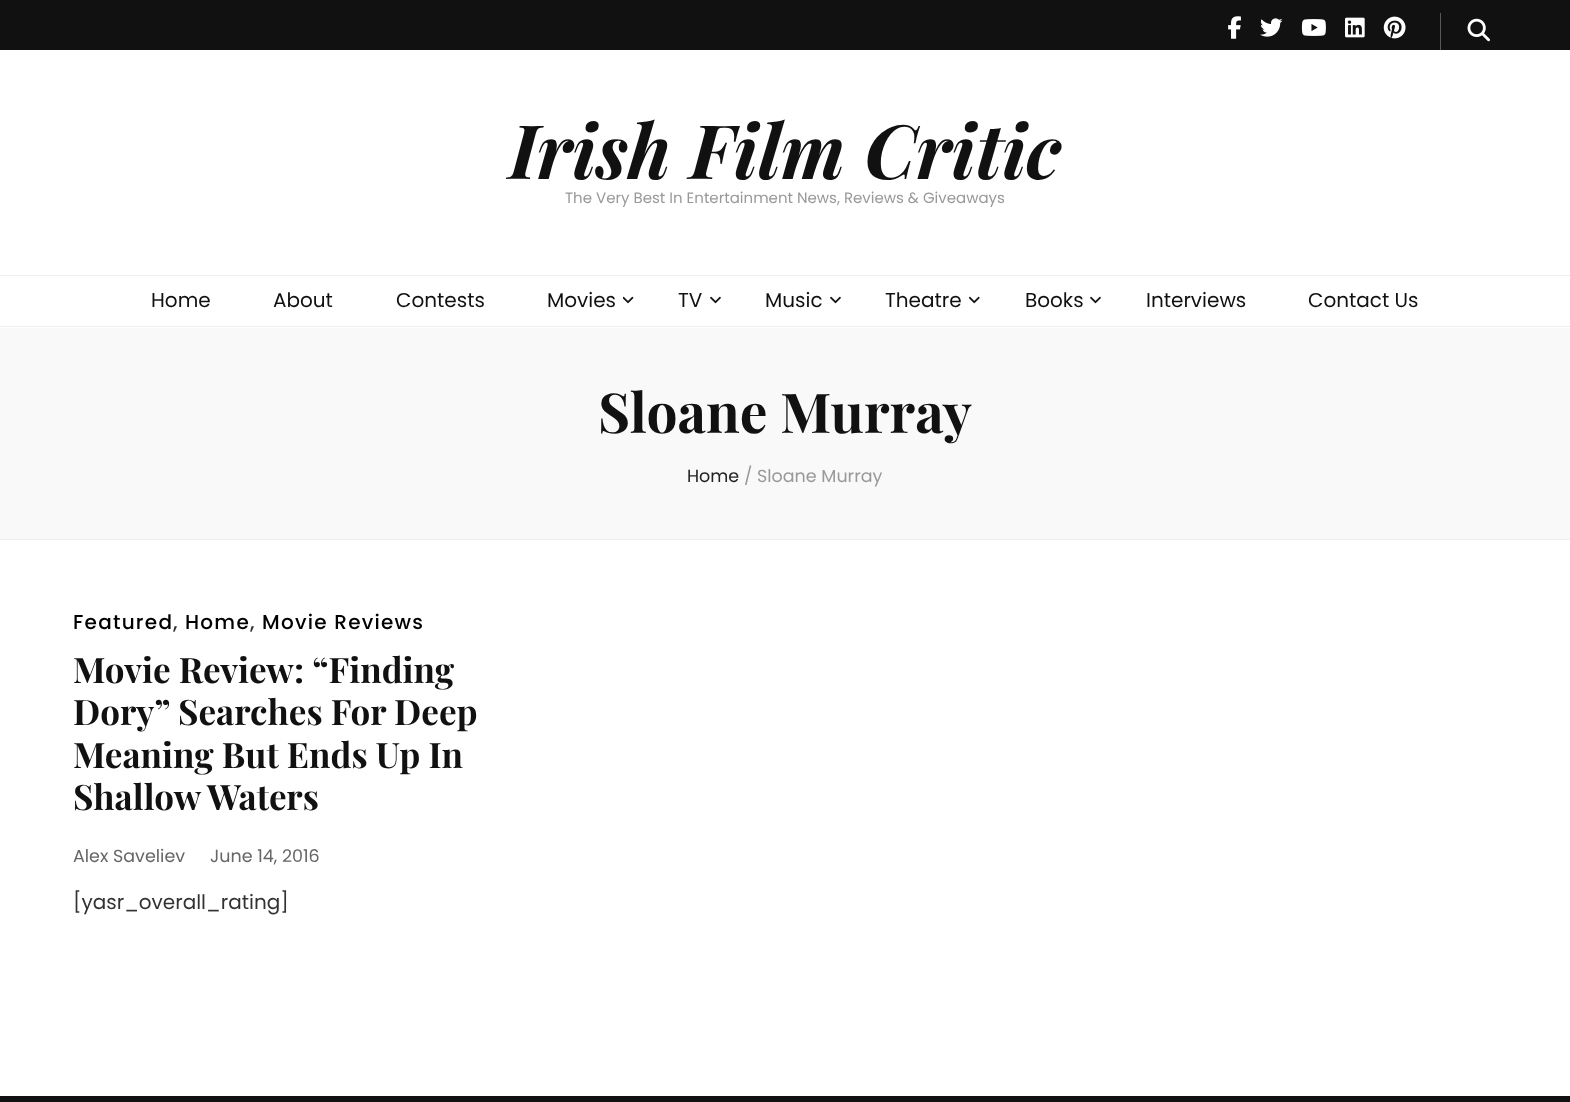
<?xml version="1.0" encoding="UTF-8"?>
<svg xmlns="http://www.w3.org/2000/svg" xmlns:xlink="http://www.w3.org/1999/xlink" width="1570" height="1102">
  <rect width="100%" height="100%" fill="#ffffff" />
  <rect width="1570" height="50" fill="#111111" />
  <image x="1228" y="16" width="13" height="23" xlink:href="image1.png" />
  <image x="1260" y="18" width="23" height="19" xlink:href="image2.png" />
  <image x="1301" y="19" width="25" height="17" xlink:href="image3.png" />
  <image x="1345" y="17" width="20" height="21" xlink:href="image4.png" />
  <image x="1383" y="16" width="23" height="23" xlink:href="image5.png" />
  <rect x="1440" y="13" width="1" height="37" fill="#595959" />
  <image x="1467" y="18" width="23" height="24" xlink:href="image6.png" />
  <rect y="275" width="1570" height="1" fill="#eeeeee" />
  <rect y="326" width="1570" height="1" fill="#eeeeee" />
  <image x="623" y="296" width="11" height="8" xlink:href="image7.png" />
  <image x="710" y="296" width="11" height="8" xlink:href="image8.png" />
  <image x="830" y="296" width="11" height="8" xlink:href="image8.png" />
  <image x="969" y="296" width="11" height="8" xlink:href="image9.png" />
  <image x="1090" y="296" width="11" height="8" xlink:href="image8.png" />
  <rect y="328" width="1570" height="211" fill="#f9f9f9" />
  <rect y="539" width="1570" height="1" fill="#eeeeee" />
  <rect y="1096" width="1570" height="6" fill="#111111" />
  <text x="509" y="179" style="font-family: Playfair Display; font-size: 75px; font-weight: bold; font-style: italic; fill: #111111">Irish Film Critic</text>
  <text x="565" y="203" style="font-family: Poppins; font-size: 15px; fill: #999999">The Very Best In Entertainment News, Reviews &amp; Giveaways</text>
  <text x="151" y="307" style="font-family: Poppins; font-size: 20px; fill: #111111">Home</text>
  <text x="273" y="307" style="font-family: Poppins; font-size: 20px; fill: #111111">About</text>
  <text x="396" y="307" style="font-family: Poppins; font-size: 20px; fill: #111111">Contests</text>
  <text x="547" y="307" style="font-family: Poppins; font-size: 20px; fill: #111111">Movies</text>
  <text x="678" y="307" style="font-family: Poppins; font-size: 20px; fill: #111111">TV</text>
  <text x="765" y="307" style="font-family: Poppins; font-size: 20px; fill: #111111">Music</text>
  <text x="885" y="307" style="font-family: Poppins; font-size: 20px; fill: #111111">Theatre</text>
  <text x="1025" y="307" style="font-family: Poppins; font-size: 20px; fill: #111111">Books</text>
  <text x="1146" y="307" style="font-family: Poppins; font-size: 20px; fill: #111111">Interviews</text>
  <text x="1308" y="307" style="font-family: Poppins; font-size: 20px; fill: #111111">Contact Us</text>
  <text x="598" y="433" style="font-family: Playfair Display; font-size: 55px; font-weight: bold; fill: #111111">Sloane Murray</text>
  <text x="687" y="482" style="font-family: Poppins; font-size: 17.5px; fill: #222222">Home</text>
  <text x="744" y="482" style="font-family: Poppins; font-size: 17.5px; fill: #999999">/ Sloane Murray</text>
  <text x="73" y="629" style="font-family: Poppins; font-size: 20px; font-weight: 500; letter-spacing: 1.25px; fill: #000000">Featured</text>
  <text x="173" y="629" style="font-family: Poppins; font-size: 20px; font-weight: 500; letter-spacing: 1.25px; fill: #333333">,</text>
  <text x="185" y="629" style="font-family: Poppins; font-size: 20px; font-weight: 500; letter-spacing: 1.25px; fill: #000000">Home</text>
  <text x="250" y="629" style="font-family: Poppins; font-size: 20px; font-weight: 500; letter-spacing: 1.25px; fill: #333333">,</text>
  <text x="262" y="629" style="font-family: Poppins; font-size: 20px; font-weight: 500; letter-spacing: 1.25px; fill: #000000">Movie Reviews</text>
  <text x="73" y="683" style="font-family: Playfair Display; font-size: 35px; font-weight: bold; fill: #111111">Movie Review: “Finding</text>
  <text x="73" y="725" style="font-family: Playfair Display; font-size: 35px; font-weight: bold; fill: #111111">Dory” Searches For Deep</text>
  <text x="73" y="768" style="font-family: Playfair Display; font-size: 35px; font-weight: bold; fill: #111111">Meaning But Ends Up In</text>
  <text x="73" y="810" style="font-family: Playfair Display; font-size: 35px; font-weight: bold; fill: #111111">Shallow Waters</text>
  <text x="73" y="862" style="font-family: Poppins; font-size: 17.5px; fill: #666666">Alex Saveliev</text>
  <text x="210" y="862" style="font-family: Poppins; font-size: 17.5px; fill: #666666">June 14, 2016</text>
  <text x="73" y="909" style="font-family: Poppins; font-size: 20px; fill: #333333">[yasr_overall_rating]</text>
</svg>
